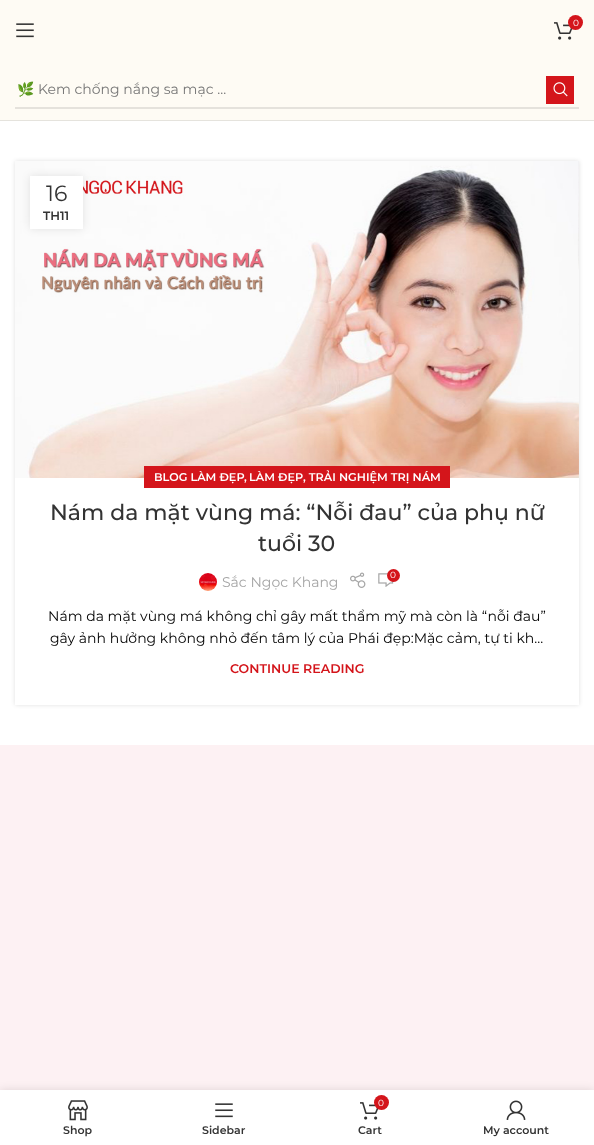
<?xml version="1.0" encoding="UTF-8"?>
<svg xmlns="http://www.w3.org/2000/svg" xmlns:xlink="http://www.w3.org/1999/xlink" width="594" height="1145">
  <defs>
    <clipPath id="clip1"><path d="M 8 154 h 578 v 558 h -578 z m 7 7 h 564 v 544 h -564 z" clip-rule="evenodd" /></clipPath>
  </defs>
  <rect width="100%" height="100%" fill="#ffffff" />
  <rect width="594" height="120" fill="#fefbf4" />
  <image x="16" y="23" width="18" height="15" xlink:href="image1.png" />
  <image x="554" y="22" width="19" height="18" xlink:href="image2.png" />
  <circle cx="575.5" cy="22.5" r="7.5" fill="#d4151b" />
  <rect y="120" width="594" height="1" fill="#e5e3dd" />
  <rect x="15" y="107" width="564" height="2" fill="#e5e2dc" />
  <rect x="546" y="76" width="28" height="28" fill="#d4151b" />
  <image x="553" y="82" width="15" height="15" xlink:href="image3.png" />
  <g clip-path="url(#clip1)">
    <rect x="15" y="161" width="564" height="544" fill="#000000" fill-opacity="0.12" filter="blur(2px)" />
  </g>
  <image x="15" y="161" width="564" height="317" xlink:href="image4.png" />
  <rect x="30" y="176" width="53" height="53" fill="#000000" fill-opacity="0.1" filter="blur(4.5px)" />
  <rect x="30" y="176" width="53" height="53" fill="#ffffff" />
  <rect x="144" y="466" width="306" height="22" fill="#d4151b" />
  <image x="199" y="573" width="18" height="18" xlink:href="image5.png" />
  <image x="350" y="572" width="16" height="16" xlink:href="image6.png" />
  <image x="378" y="573" width="16" height="14" xlink:href="image7.png" />
  <circle cx="393.5" cy="575.5" r="6.5" fill="#d4151b" />
  <rect y="745" width="594" height="345" fill="#fdf1f3" />
  <rect y="1090" width="594" height="55" fill="#000000" fill-opacity="0.12" filter="blur(4.5px)" />
  <rect y="1090" width="594" height="55" fill="#ffffff" />
  <image x="68" y="1100" width="20" height="21" xlink:href="image8.png" />
  <image x="215" y="1103" width="18" height="15" xlink:href="image9.png" />
  <image x="360" y="1102" width="19" height="18" xlink:href="image10.png" />
  <circle cx="381.5" cy="1102.5" r="7.5" fill="#d4151b" />
  <image x="506" y="1100" width="20" height="20" xlink:href="image11.png" />
  <text x="573" y="26" style="font-family: Montserrat; font-size: 9px; fill: #ffffff">0</text>
  <text x="17" y="94" style="font-family: Noto Color Emoji; font-size: 14px; fill: #767676">🌿</text>
  <text x="38" y="94" style="font-family: Montserrat; font-size: 14px; fill: #767676">Kem chống nắng sa mạc ...</text>
  <text x="46" y="201" style="font-family: Montserrat; font-size: 22px; fill: #333333">16</text>
  <text x="43" y="220" style="font-family: Montserrat; font-size: 12px; font-weight: 600; fill: #333333">TH11</text>
  <text x="154" y="481" style="font-family: Montserrat; font-size: 11.25px; font-weight: 600; fill: #ffffff">BLOG LÀM ĐẸP</text>
  <text x="244" y="481" style="font-family: Montserrat; font-size: 11.25px; font-weight: 600; fill: #ffffff">,</text>
  <text x="249" y="481" style="font-family: Montserrat; font-size: 11.25px; font-weight: 600; fill: #ffffff">LÀM ĐẸP</text>
  <text x="303" y="481" style="font-family: Montserrat; font-size: 11.25px; font-weight: 600; fill: #ffffff">, TRẢI NGHIỆM TRỊ NÁM</text>
  <text x="50" y="520" style="font-family: Montserrat; font-size: 22px; font-weight: 500; fill: #333333">Nám da mặt vùng má: “Nỗi đau” của phụ nữ</text>
  <text x="258" y="551" style="font-family: Montserrat; font-size: 22px; font-weight: 500; fill: #333333">tuổi 30</text>
  <text x="222" y="587" style="font-family: Montserrat; font-size: 14px; fill: #a5a5a5">Sắc Ngọc Khang</text>
  <text x="390" y="578" style="font-family: Montserrat; font-size: 9px; fill: #ffffff">0</text>
  <text x="48" y="621" style="font-family: Montserrat; font-size: 14px; fill: #000000">Nám da mặt vùng má không chỉ gây mất thẩm mỹ mà còn là “nỗi đau”</text>
  <text x="50" y="643" style="font-family: Montserrat; font-size: 14px; fill: #000000">gây ảnh hưởng không nhỏ đến tâm lý của Phái đẹp:Mặc cảm, tự ti kh...</text>
  <text x="230" y="673" style="font-family: Montserrat; font-size: 12.6px; font-weight: 600; fill: #d4151b">CONTINUE READING</text>
  <text x="63" y="1134" style="font-family: Montserrat; font-size: 11px; font-weight: 600; fill: #333333">Shop</text>
  <text x="202" y="1134" style="font-family: Montserrat; font-size: 11px; font-weight: 600; fill: #333333">Sidebar</text>
  <text x="378" y="1106" style="font-family: Montserrat; font-size: 9px; fill: #ffffff">0</text>
  <text x="358" y="1134" style="font-family: Montserrat; font-size: 11px; font-weight: 600; fill: #333333">Cart</text>
  <text x="483" y="1134" style="font-family: Montserrat; font-size: 11px; font-weight: 600; fill: #333333">My account</text>
</svg>
